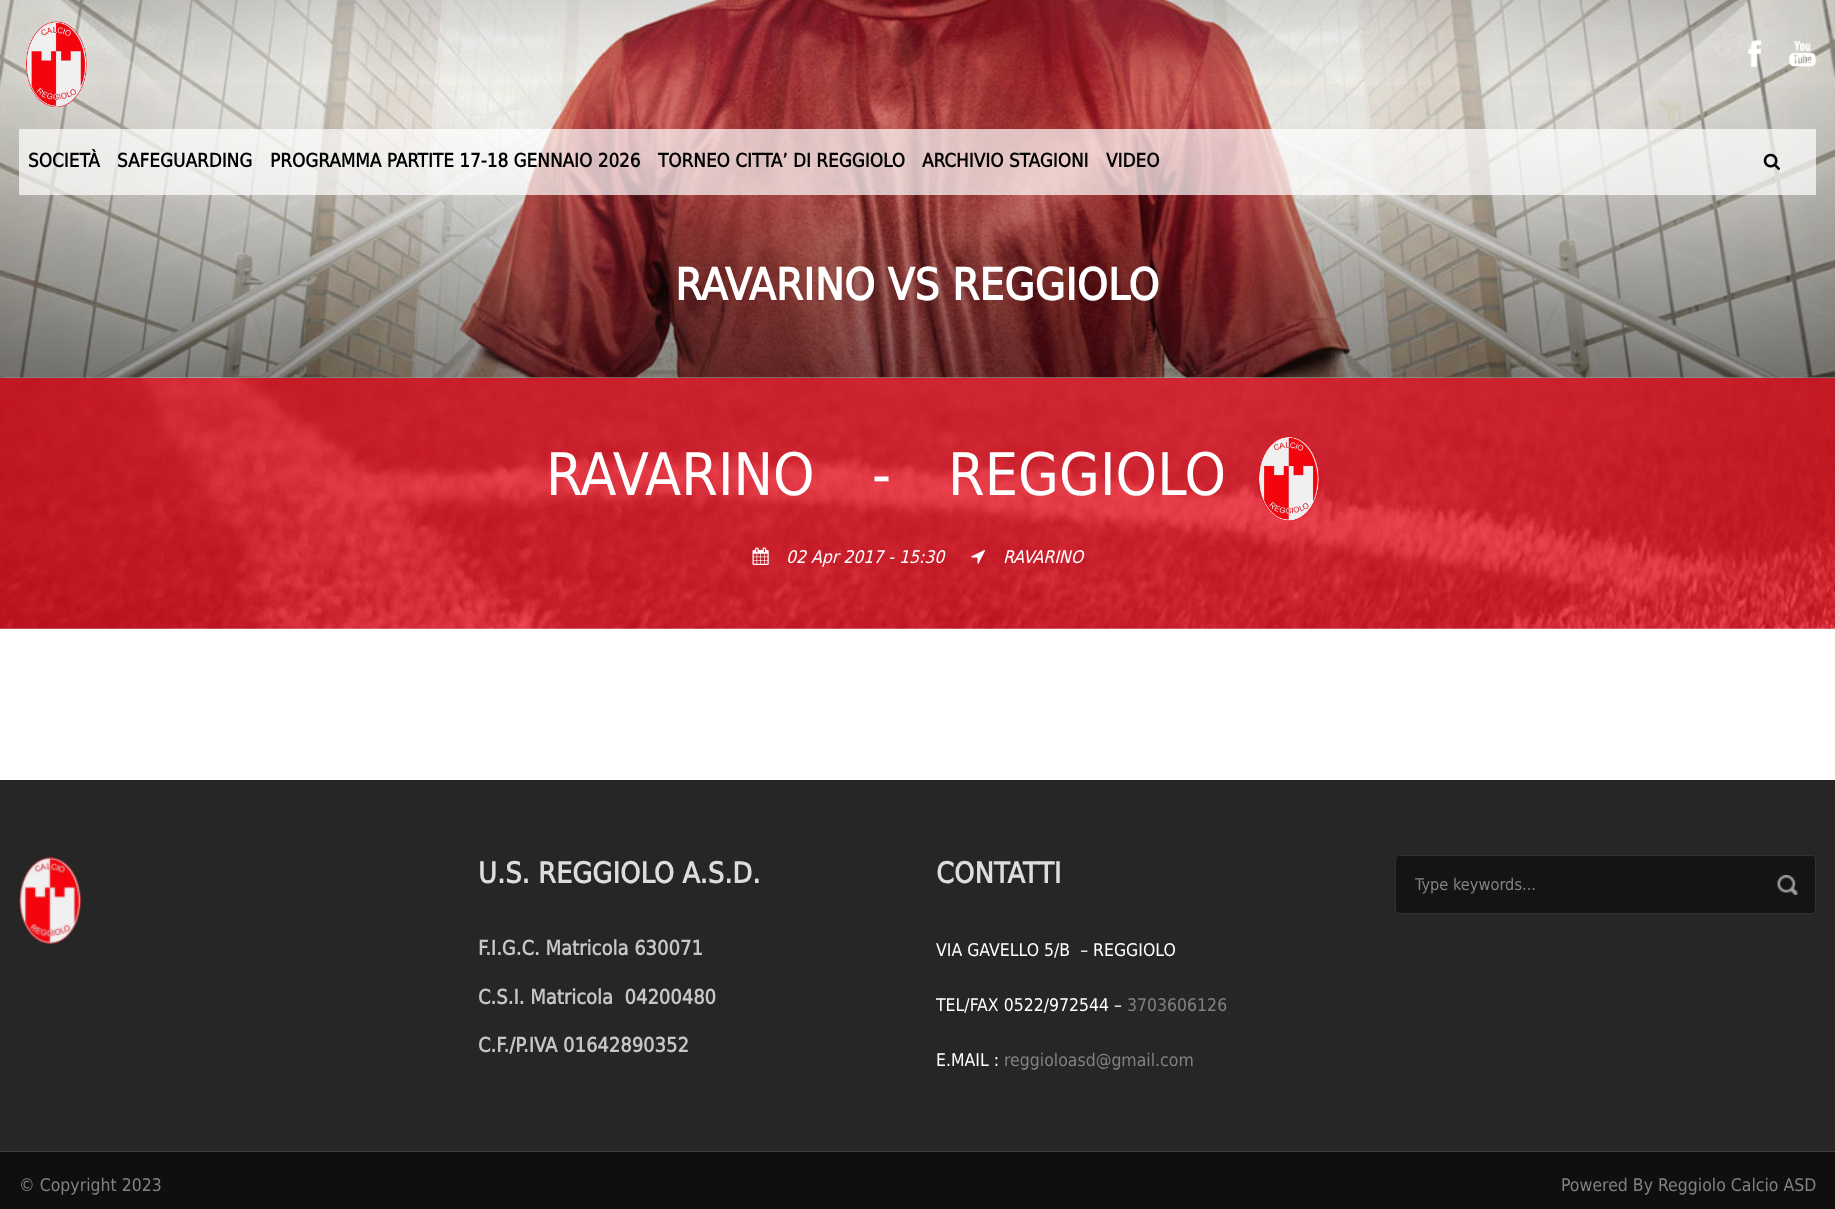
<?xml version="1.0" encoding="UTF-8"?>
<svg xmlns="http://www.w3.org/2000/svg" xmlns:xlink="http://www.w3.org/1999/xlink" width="1835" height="1209">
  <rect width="100%" height="100%" fill="#ffffff" />
  <image x="0" y="377" width="1835" height="252" xlink:href="image6.png" />
  <image x="0" y="0" width="1835" height="378" xlink:href="image1.png" />
  <image x="1748" y="40" width="13" height="28" xlink:href="image2.png" />
  <image x="1788" y="41" width="29" height="26" xlink:href="image3.png" />
  <image x="26" y="21" width="61" height="86" xlink:href="image4.png" />
  <rect x="19" y="129" width="1797" height="66" fill="#ffffff" fill-opacity="0.7" />
  <image x="1763" y="153" width="17" height="17" xlink:href="image5.png" />
  <image x="1258" y="436" width="62" height="85" xlink:href="image7.png" />
  <image x="752" y="547" width="17" height="18" xlink:href="image8.png" />
  <image x="971" y="550" width="14" height="14" xlink:href="image9.png" />
  <rect y="780" width="1835" height="371" fill="#262626" />
  <image x="18" y="856" width="64" height="89" xlink:href="image10.png" />
  <rect x="1395.5" y="855.5" width="420" height="58" rx="3.5" fill="#141414" stroke="#313131" />
  <image x="1777" y="875" width="21" height="20" xlink:href="image11.png" />
  <rect y="1152" width="1835" height="57" fill="#0f0f0f" />
  <rect y="1151" width="1835" height="1" fill="#3f3f3f" />
  <text x="28" y="167" style="font-family: DejaVu Sans; font-size: 18.75px; font-weight: bold; fill: #000000">SOCIETÀ</text>
  <text x="117" y="167" style="font-family: DejaVu Sans; font-size: 18.75px; font-weight: bold; fill: #000000">SAFEGUARDING</text>
  <text x="270" y="167" style="font-family: DejaVu Sans; font-size: 18.75px; font-weight: bold; fill: #000000">PROGRAMMA PARTITE 17-18 GENNAIO 2026</text>
  <text x="658" y="167" style="font-family: DejaVu Sans; font-size: 18.75px; font-weight: bold; fill: #000000">TORNEO CITTA’ DI REGGIOLO</text>
  <text x="922" y="167" style="font-family: DejaVu Sans; font-size: 18.75px; font-weight: bold; fill: #000000">ARCHIVIO STAGIONI</text>
  <text x="1106" y="167" style="font-family: DejaVu Sans; font-size: 18.75px; font-weight: bold; fill: #000000">VIDEO</text>
  <text x="675" y="300" style="font-family: DejaVu Sans; font-size: 43.75px; font-weight: bold; fill: #ffffff">RAVARINO VS REGGIOLO</text>
  <text x="546" y="495" style="font-family: DejaVu Sans; font-size: 58.75px; fill: #ffffff">RAVARINO</text>
  <text x="872" y="495" style="font-family: DejaVu Sans; font-size: 58.75px; fill: #ffffff">-</text>
  <text x="948" y="495" style="font-family: DejaVu Sans; font-size: 58.75px; fill: #ffffff">REGGIOLO</text>
  <text x="786" y="563" style="font-family: DejaVu Sans; font-size: 17.5px; font-style: italic; fill: #ffffff">02 Apr 2017 - 15:30</text>
  <text x="1003" y="563" style="font-family: DejaVu Sans; font-size: 17.5px; font-style: italic; fill: #ffffff">RAVARINO</text>
  <text x="478" y="883" style="font-family: DejaVu Sans; font-size: 28.75px; font-weight: bold; fill: #dddddd">U.S. REGGIOLO A.S.D.</text>
  <text x="478" y="955" style="font-family: DejaVu Sans; font-size: 20px; font-weight: bold; fill: #c6c6c6">F.I.G.C. Matricola 630071</text>
  <text x="478" y="1004" style="font-family: DejaVu Sans; font-size: 20px; font-weight: bold; fill: #c6c6c6" xml:space="preserve">C.S.I. Matricola  04200480</text>
  <text x="478" y="1052" style="font-family: DejaVu Sans; font-size: 20px; font-weight: bold; fill: #c6c6c6">C.F./P.IVA 01642890352</text>
  <text x="936" y="883" style="font-family: DejaVu Sans; font-size: 28.75px; font-weight: bold; fill: #dddddd">CONTATTI</text>
  <text x="936" y="956" style="font-family: DejaVu Sans; font-size: 17.5px; fill: #ffffff" xml:space="preserve">VIA GAVELLO 5/B  – REGGIOLO</text>
  <text x="936" y="1011" style="font-family: DejaVu Sans; font-size: 17.5px; fill: #ffffff">TEL/FAX 0522/972544 –</text>
  <text x="1127" y="1011" style="font-family: DejaVu Sans; font-size: 17.5px; fill: #828282">3703606126</text>
  <text x="936" y="1066" style="font-family: DejaVu Sans; font-size: 17.5px; fill: #ffffff">E.MAIL :</text>
  <text x="1004" y="1066" style="font-family: DejaVu Sans; font-size: 17.5px; fill: #828282">reggioloasd@gmail.com</text>
  <text x="1415" y="890" style="font-family: DejaVu Sans; font-size: 16.25px; fill: #828282">Type keywords...</text>
  <text x="19" y="1191" style="font-family: DejaVu Sans; font-size: 17.5px; fill: #828282">© Copyright 2023</text>
  <text x="1561" y="1191" style="font-family: DejaVu Sans; font-size: 17.5px; fill: #828282">Powered By Reggiolo Calcio ASD</text>
</svg>
